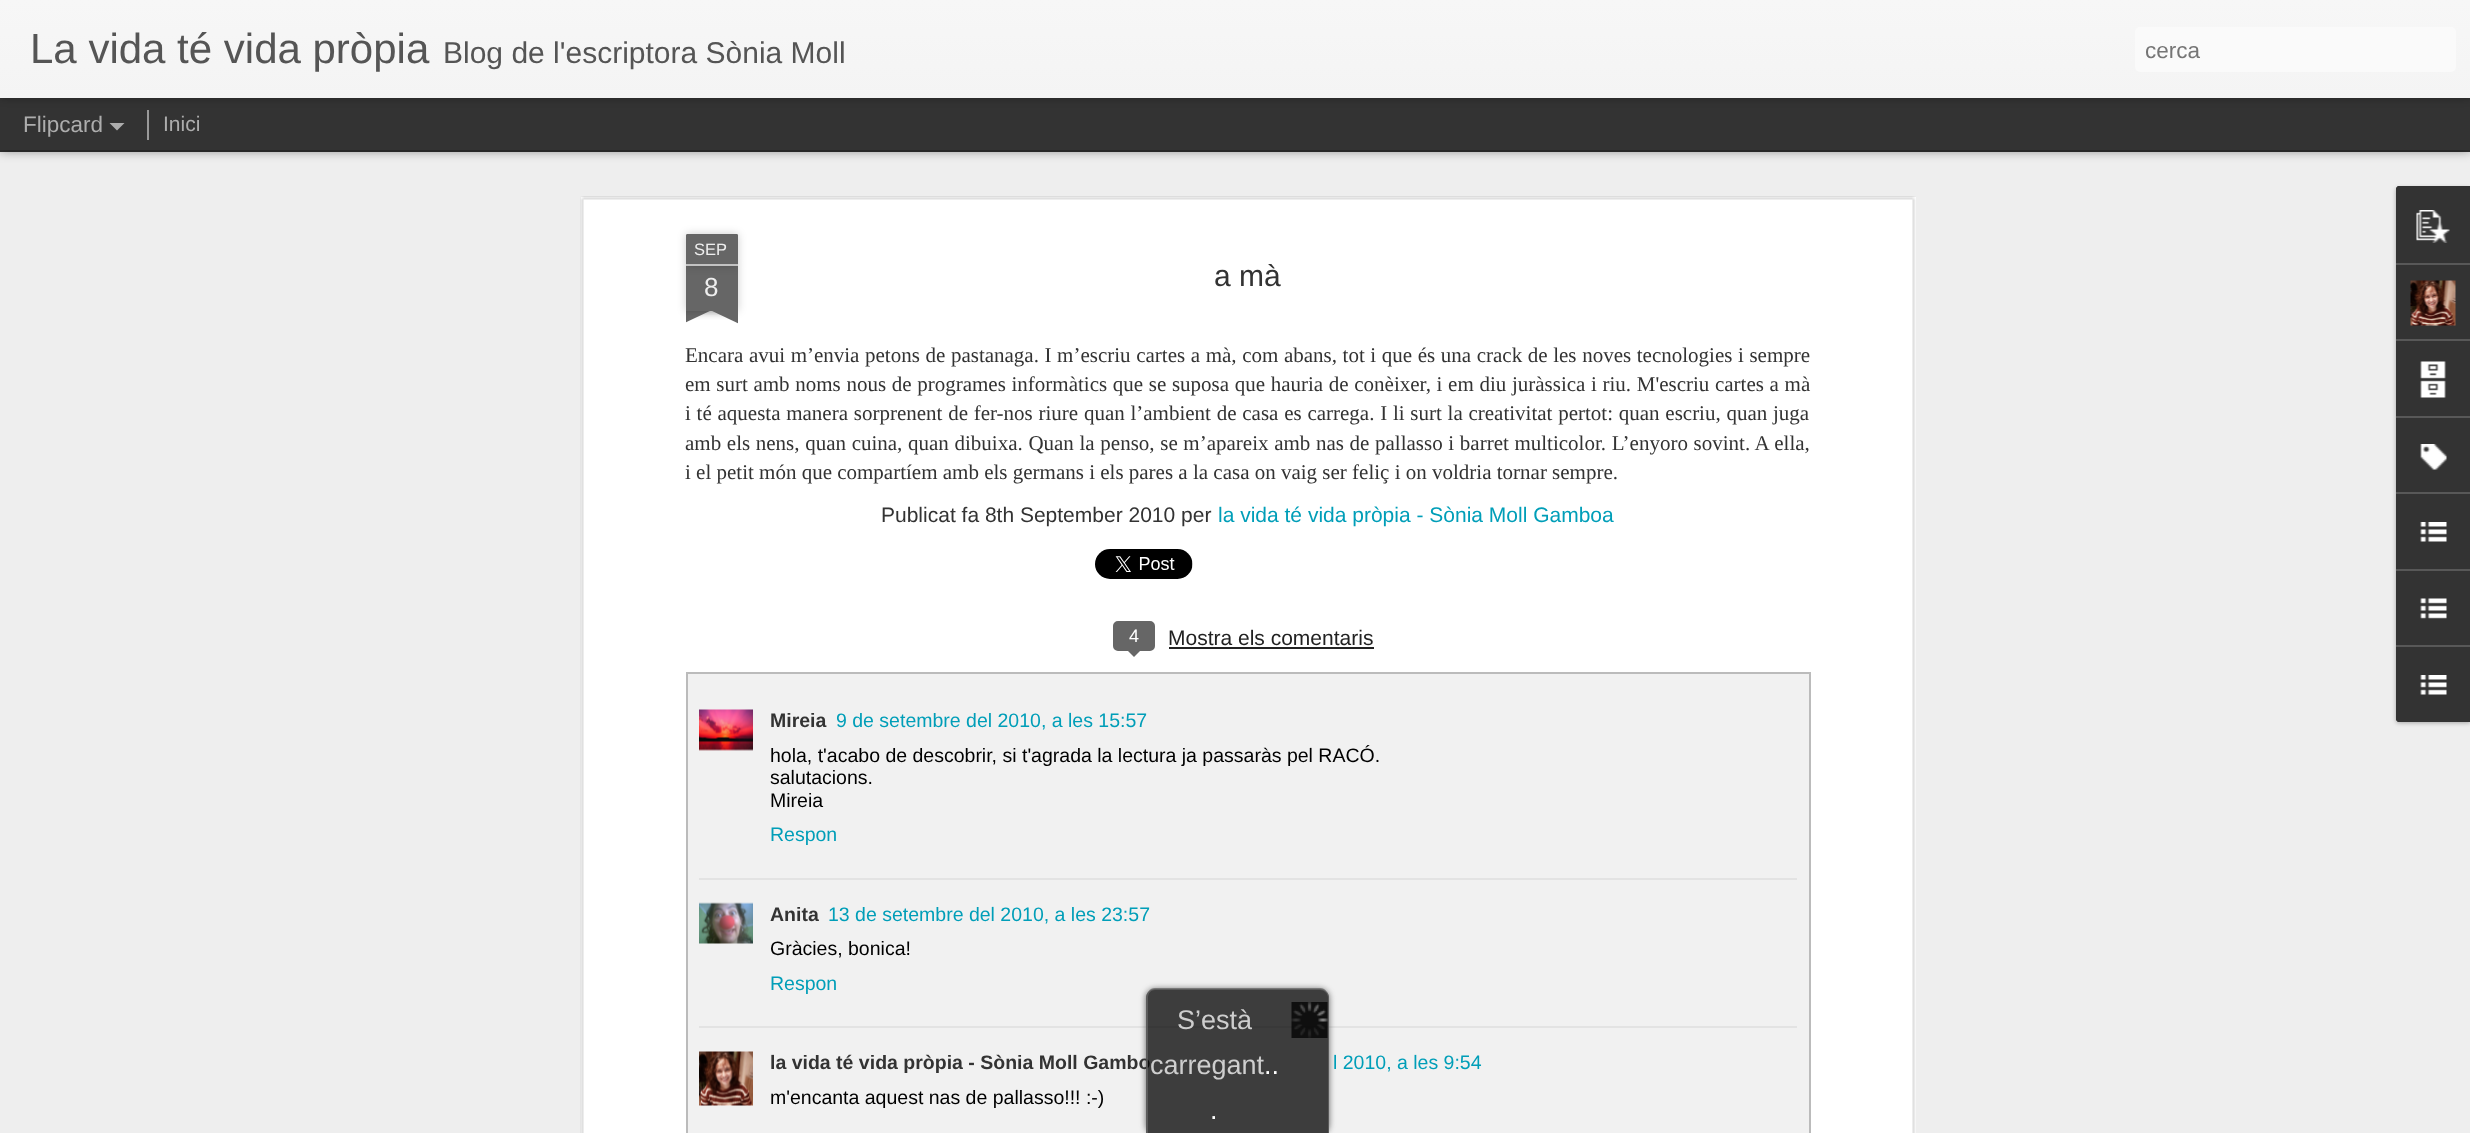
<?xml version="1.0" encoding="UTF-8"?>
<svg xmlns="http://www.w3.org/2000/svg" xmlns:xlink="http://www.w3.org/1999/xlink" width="2470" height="1133">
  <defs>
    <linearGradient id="g1" gradientUnits="userSpaceOnUse" x1="0" y1="0" x2="0" y2="98"><stop offset="0" stop-color="#f7f7f7" /><stop offset="1" stop-color="#f4f4f4" /></linearGradient>
    <clipPath id="clip1"><rect x="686" y="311" width="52" height="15" /></clipPath>
    <clipPath id="clip2"><rect x="686" y="311" width="52" height="15" /></clipPath>
    <clipPath id="clip3"><path d="M 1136 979 h 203 v 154 h -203 z m 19 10 h 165 c 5 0 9 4 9 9 v 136 h -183 v -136 c 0 -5 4 -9 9 -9 z" clip-rule="evenodd" /></clipPath>
  </defs>
  <rect width="100%" height="100%" fill="#333333" />
  <rect y="152" width="2470" height="981" fill="#eeeeee" />
  <rect y="98" width="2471" height="52" fill="#000000" fill-opacity="0.5" filter="blur(6px)" />
  <rect y="98" width="2470" height="52" fill="#333333" />
  <rect x="147" y="110" width="2" height="30" fill="#999999" />
  <rect width="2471" height="98" fill="#000000" fill-opacity="0.3" filter="blur(4px)" />
  <rect width="2470" height="98" fill="url(#g1)" />
  <rect x="2135" y="27" width="321" height="45" rx="5" fill="#fafafa" />
  <path d="M 109.5 123 h 15 l -7.5 7.5 z" fill="#adadad" />
  <rect x="581" y="197" width="1335" height="936" fill="#ffffff" />
  <image x="580" y="196" width="1336" height="937" xlink:href="image1.png" />
  <rect x="686" y="266" width="52" height="45" fill="#000000" fill-opacity="0.2" filter="blur(4px)" />
  <rect x="686" y="266" width="52" height="45" fill="#666666" />
  <rect x="686" y="234" width="52" height="32" rx="1.5" fill="#000000" fill-opacity="0.2" filter="blur(4px)" />
  <path d="M 687.5 234 h 49 c 1 0 1.5 0.5 1.5 1.5 v 30.5 h -52 v -30.5 c 0 -1 0.5 -1.5 1.5 -1.5 z" fill="#666666" />
  <rect x="686" y="264" width="52" height="2" fill="#c2c2c2" />
  <g clip-path="url(#clip1)">
    <rect x="672" y="296" width="75" height="15" fill="#000000" fill-opacity="0.2" filter="blur(4px)" />
  </g>
  <g clip-path="url(#clip2)">
    <path d="M 672 312 l 68 -32 l 6 14 l -68 32 z" fill="#666666" />
  </g>
  <g clip-path="url(#clip1)">
    <rect x="677" y="296" width="75" height="15" fill="#000000" fill-opacity="0.2" filter="blur(4px)" />
  </g>
  <g clip-path="url(#clip2)">
    <path d="M 682 280 l 68 32 l -6 14 l -68 -32 z" fill="#666666" />
  </g>
  <image x="1095" y="549" width="98" height="30" xlink:href="image2.png" />
  <rect x="1114" y="622" width="40" height="28" rx="4" fill="#666666" stroke="#666666" stroke-width="2" />
  <path d="M 1126.5 649.5 h 15 l -7.5 7.5 z" fill="#666666" />
  <rect x="1169" y="647" width="205" height="2" fill="#222222" />
  <rect x="687" y="673" width="1123" height="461" fill="#f1f1f1" stroke="#bbbbbb" stroke-width="2" />
  <rect x="699" y="878" width="1098" height="2" fill="#e3e3e3" />
  <image x="699" y="709" width="54" height="42" xlink:href="image3.png" />
  <rect x="699" y="1026" width="1098" height="2" fill="#e3e3e3" />
  <image x="699" y="902" width="54" height="42" xlink:href="image4.png" />
  <image x="699" y="1051" width="54" height="55" xlink:href="image5.png" />
  <rect x="2396" y="188" width="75" height="535" rx="3" fill="#000000" fill-opacity="0.3" filter="blur(2px)" />
  <path d="M 2399 186 h 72 v 536 h -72 c -1.5 0 -3 -1.5 -3 -3 v -530 c 0 -1.5 1.5 -3 3 -3 z" fill="#333333" />
  <path d="M 2399 186 h 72 v 77 h -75 v -74 c 0 -1.5 1.5 -3 3 -3 z" fill="#333333" />
  <image x="2416" y="210" width="34" height="33" xlink:href="image6.png" />
  <rect x="2396" y="263" width="74" height="2" fill="#585858" />
  <image x="2410" y="280" width="46" height="46" xlink:href="image7.png" />
  <rect x="2396" y="339" width="74" height="2" fill="#585858" />
  <image x="2420" y="361" width="26" height="37" xlink:href="image8.png" />
  <rect x="2396" y="416" width="74" height="2" fill="#585858" />
  <image x="2420" y="444" width="27" height="26" xlink:href="image9.png" />
  <rect x="2396" y="492" width="74" height="2" fill="#585858" />
  <image x="2420" y="522" width="27" height="20" xlink:href="image10.png" />
  <rect x="2396" y="569" width="74" height="2" fill="#585858" />
  <image x="2420" y="598" width="27" height="21" xlink:href="image11.png" />
  <path d="M 2396 645 h 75 v 77 h -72 c -1.5 0 -3 -1.5 -3 -3 z" fill="#333333" />
  <rect x="2396" y="645" width="74" height="2" fill="#585858" />
  <image x="2420" y="675" width="27" height="20" xlink:href="image10.png" />
  <g clip-path="url(#clip3)">
    <rect x="1146" y="989" width="183" height="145" rx="9" fill="#333333" fill-opacity="0.75" filter="blur(3px)" />
  </g>
  <text x="30" y="63" style="font-family: Liberation Sans; font-size: 42px; fill: #555555">La vida té vida pròpia</text>
  <text x="443" y="63" style="font-family: Liberation Sans; font-size: 30px; fill: #555555">Blog de l'escriptora Sònia Moll</text>
  <text x="2145" y="58" style="font-family: Liberation Sans; font-size: 22.5px; fill: #757575">cerca</text>
  <text x="23" y="132" style="font-family: Liberation Sans; font-size: 22.5px; fill: #adadad">Flipcard</text>
  <text x="163" y="131" style="font-family: Liberation Sans; font-size: 21px; fill: #adadad">Inici</text>
  <text x="694" y="255" style="font-family: Liberation Sans; font-size: 16.5px; fill: #eeeeee">SEP</text>
  <text x="704" y="296" style="font-family: Liberation Sans; font-size: 26px; fill: #eeeeee">8</text>
  <text x="1214" y="286" style="font-family: Liberation Sans; font-size: 30px; fill: #333333">a mà</text>
  <text x="685" y="362" word-spacing="0.35" style="font-family: Liberation Serif; font-size: 21px; fill: #333333">Encara avui m’envia petons de pastanaga. I m’escriu cartes a mà, com abans, tot i que és una crack de les noves tecnologies i sempre</text>
  <text x="685" y="391" word-spacing="0.4" style="font-family: Liberation Serif; font-size: 21px; fill: #333333">em surt amb noms nous de programes informàtics que se suposa que hauria de conèixer, i em diu juràssica i riu. M'escriu cartes a mà</text>
  <text x="685" y="420" word-spacing="0.5" style="font-family: Liberation Serif; font-size: 21px; fill: #333333">i té aquesta manera sorprenent de fer-nos riure quan l’ambient de casa es carrega. I li surt la creativitat pertot: quan escriu, quan juga</text>
  <text x="685" y="450" word-spacing="0.4" style="font-family: Liberation Serif; font-size: 21px; fill: #333333">amb els nens, quan cuina, quan dibuixa. Quan la penso, se m’apareix amb nas de pallasso i barret multicolor. L’enyoro sovint. A ella,</text>
  <text x="685" y="479" style="font-family: Liberation Serif; font-size: 21px; fill: #333333">i el petit món que compartíem amb els germans i els pares a la casa on vaig ser feliç i on voldria tornar sempre.</text>
  <text x="881" y="522" style="font-family: Liberation Sans; font-size: 21px; fill: #333333">Publicat fa 8th September 2010 per</text>
  <text x="1218" y="522" style="font-family: Liberation Sans; font-size: 21px; fill: #009eb8">la vida té vida pròpia - Sònia Moll Gamboa</text>
  <text x="1129" y="642" style="font-family: Liberation Sans; font-size: 18px; fill: #ffffff">4</text>
  <text x="1168" y="645" style="font-family: Liberation Sans; font-size: 21px; fill: #222222">Mostra els comentaris</text>
  <text x="770" y="727" style="font-family: Liberation Sans; font-size: 19.5px; font-weight: bold; fill: #333333">Mireia</text>
  <text x="836" y="727" style="font-family: Liberation Sans; font-size: 19.5px; fill: #009eb8">9 de setembre del 2010, a les 15:57</text>
  <text x="770" y="762" style="font-family: Liberation Sans; font-size: 19.5px; fill: #000000">hola, t'acabo de descobrir, si t'agrada la lectura ja passaràs pel RACÓ.</text>
  <text x="770" y="784" style="font-family: Liberation Sans; font-size: 19.5px; fill: #000000">salutacions.</text>
  <text x="770" y="807" style="font-family: Liberation Sans; font-size: 19.5px; fill: #000000">Mireia</text>
  <text x="770" y="841" style="font-family: Liberation Sans; font-size: 19.5px; fill: #009eb8">Respon</text>
  <text x="770" y="921" style="font-family: Liberation Sans; font-size: 19.5px; font-weight: bold; fill: #333333">Anita</text>
  <text x="828" y="921" style="font-family: Liberation Sans; font-size: 19.5px; fill: #009eb8">13 de setembre del 2010, a les 23:57</text>
  <text x="770" y="955" style="font-family: Liberation Sans; font-size: 19.5px; fill: #000000">Gràcies, bonica!</text>
  <text x="770" y="990" style="font-family: Liberation Sans; font-size: 19.5px; fill: #009eb8">Respon</text>
  <text x="770" y="1069" style="font-family: Liberation Sans; font-size: 19.5px; font-weight: bold; fill: #333333">la vida té vida pròpia - Sònia Moll Gambo</text>
  <text x="1333" y="1069" style="font-family: Liberation Sans; font-size: 19.5px; fill: #009eb8">l 2010, a les 9:54</text>
  <text x="770" y="1104" style="font-family: Liberation Sans; font-size: 19.5px; fill: #000000">m'encanta aquest nas de pallasso!!! :-)</text>
  <path d="M 1155 989 h 165 c 5 0 9 4 9 9 v 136 h -183 v -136 c 0 -5 4 -9 9 -9 z" fill="#000000" fill-opacity="0.75" />
  <path d="M 1155 988 h 165 c 5 0 9 5 9 10 v 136 h -183 v -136 c 0 -5 4 -10 9 -10 z m 0 2 h 165 c 4 0 8 3 8 8 v 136 h -180 v -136 c 0 -5 3 -8 7 -8 z" fill="#666666" fill-opacity="0.75" fill-rule="evenodd" />
  <image x="1291" y="1002" width="37" height="36" xlink:href="image12.png" />
  <text x="1177" y="1029" style="font-family: Liberation Sans; font-size: 27px; fill: #cecece">S’està</text>
  <text x="1150" y="1074" style="font-family: Liberation Sans; font-size: 27px; fill: #cecece">carregant</text>
  <text x="1264" y="1074" style="font-family: Liberation Sans; font-size: 27px; fill: #ffffff">..</text>
  <text x="1210" y="1119" style="font-family: Liberation Sans; font-size: 27px; fill: #ffffff">.</text>
</svg>
